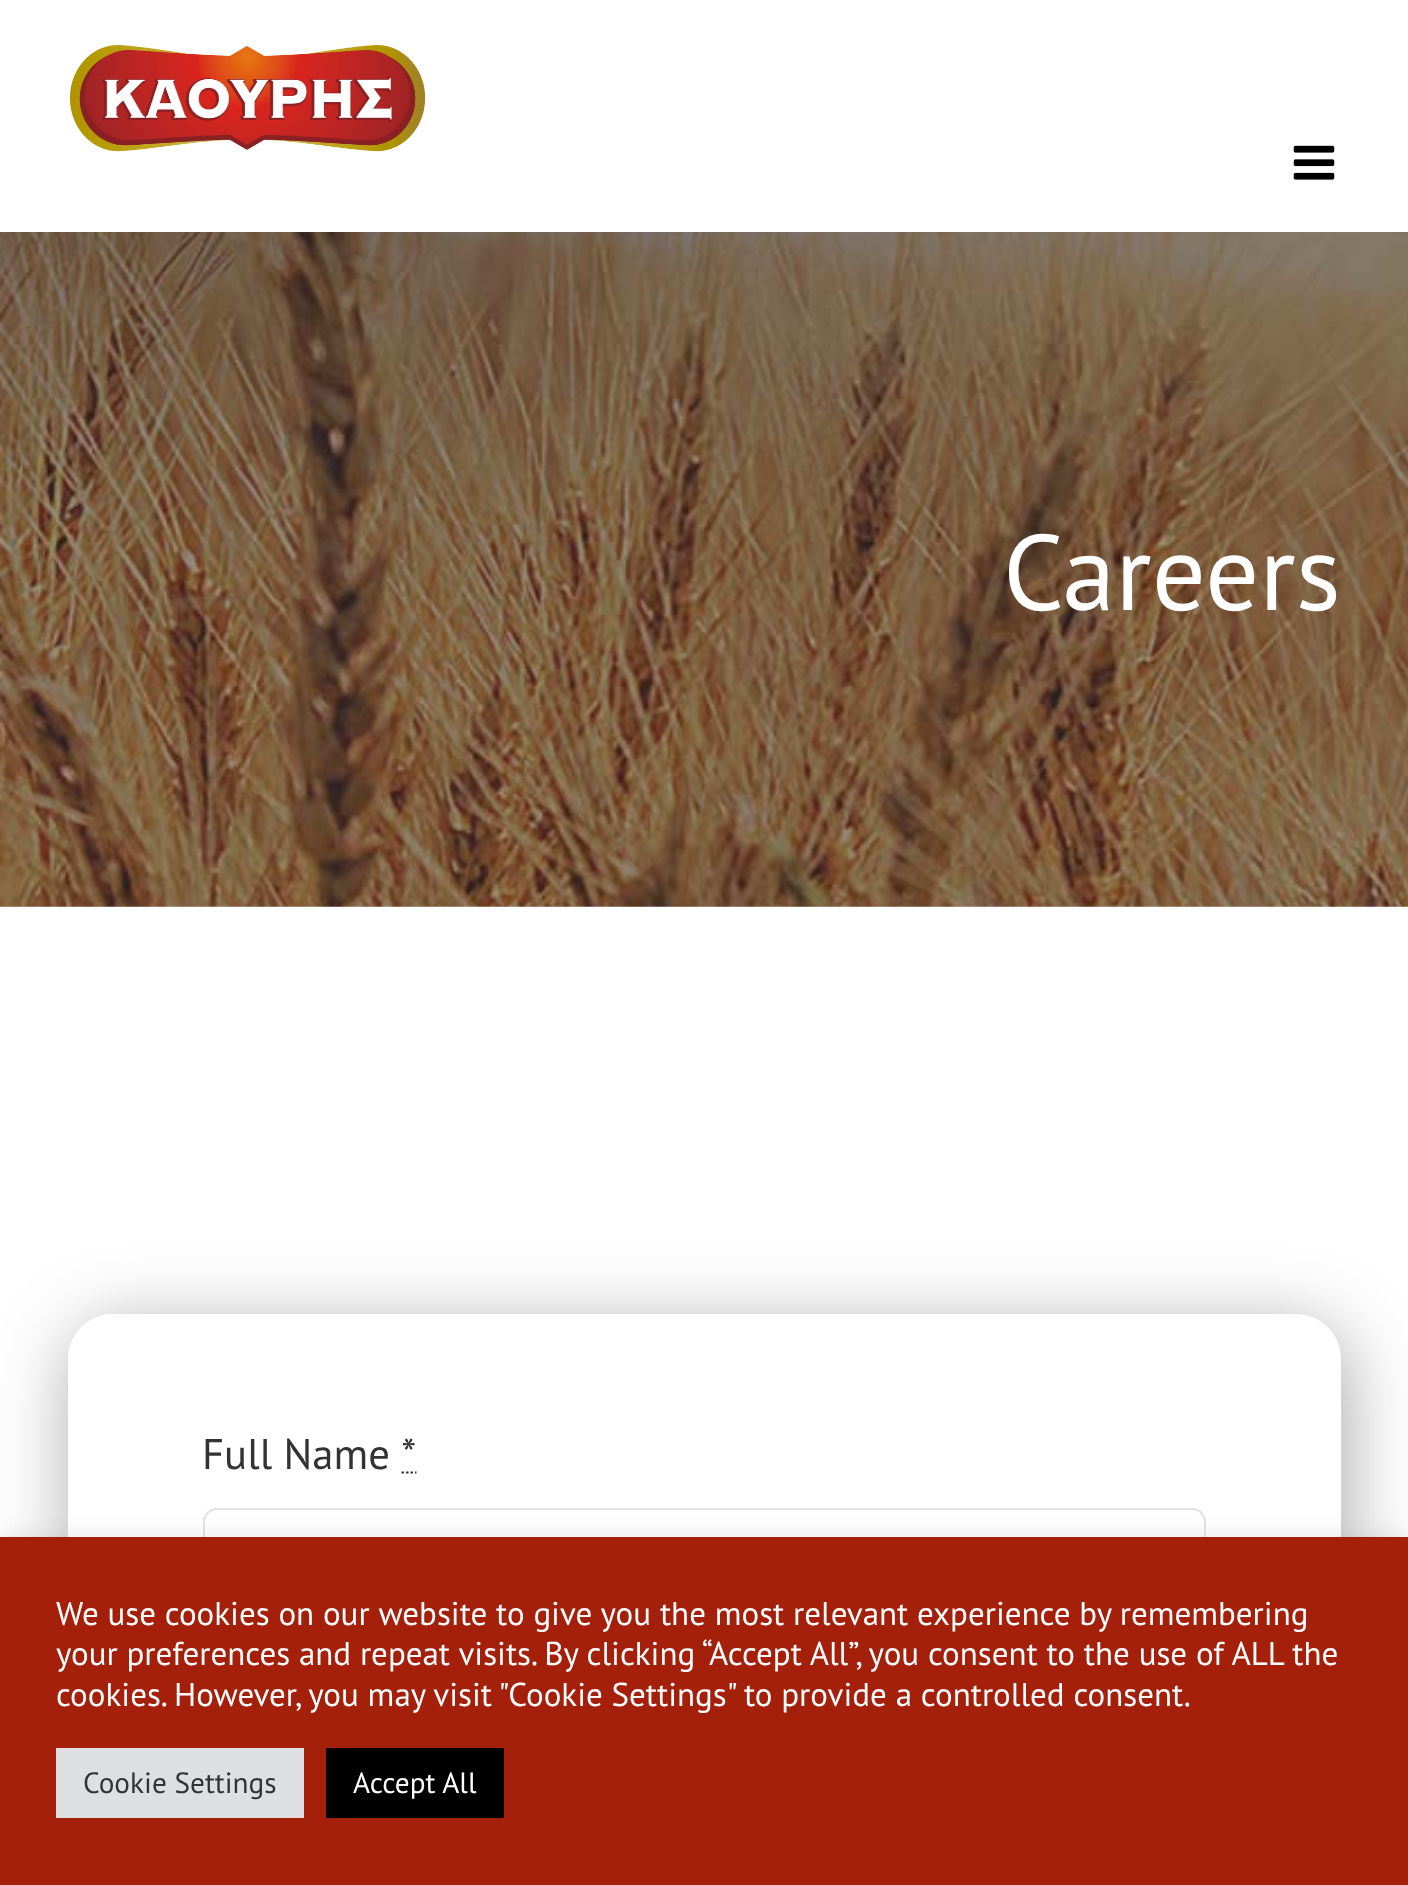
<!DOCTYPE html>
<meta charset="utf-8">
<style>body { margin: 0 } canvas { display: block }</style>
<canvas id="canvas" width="1408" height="1885"></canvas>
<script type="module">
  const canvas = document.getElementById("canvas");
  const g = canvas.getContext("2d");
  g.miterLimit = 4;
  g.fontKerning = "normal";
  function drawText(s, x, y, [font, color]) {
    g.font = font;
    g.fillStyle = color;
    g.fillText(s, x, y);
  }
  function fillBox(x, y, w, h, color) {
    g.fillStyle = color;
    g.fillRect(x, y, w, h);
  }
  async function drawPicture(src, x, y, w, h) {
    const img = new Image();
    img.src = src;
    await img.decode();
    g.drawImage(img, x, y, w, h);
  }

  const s1 = ["107px PT Sans", "#FFFFFF"];
  const s2 = ["42.75px PT Sans", "#333333"];
  const s3 = ["33px PT Sans", "#FFFFFF"];
  const s4 = ["29.25px PT Sans", "#333333"];
  const s5 = ["29.25px PT Sans", "#FFFFFF"];

  fillBox(0, 0, 1408, 1885, "#FFFFFF");
  await drawPicture("pic1.png", 69, 45, 357, 107);
  await drawPicture("pic2.png", 1293, 145, 42, 35);
  await drawPicture("pic3.png", 0, 232, 1408, 675);
  drawText("Careers", 1003, 610, s1);
  g.save();
  g.beginPath();
  g.moveTo(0, 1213);
  g.lineTo(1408, 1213);
  g.lineTo(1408, 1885);
  g.lineTo(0, 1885);
  g.closePath();
  g.moveTo(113, 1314);
  g.lineTo(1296, 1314);
  g.bezierCurveTo(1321, 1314, 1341, 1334, 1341, 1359);
  g.lineTo(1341, 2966);
  g.bezierCurveTo(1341, 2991, 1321, 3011, 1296, 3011);
  g.lineTo(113, 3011);
  g.bezierCurveTo(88, 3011, 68, 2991, 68, 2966);
  g.lineTo(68, 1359);
  g.bezierCurveTo(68, 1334, 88, 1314, 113, 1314);
  g.closePath();
  g.clip("evenodd");
  g.fillStyle = "rgba(0, 0, 0, 0.34)";
  g.filter = "blur(38px)";
  g.beginPath();
  g.roundRect(72, 1328, 1274, 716, 45);
  g.fill();
  g.filter = "none";
  g.restore();
  drawText("Full Name *", 202, 1469, s2);
  g.beginPath();
  g.moveTo(401.5, 1472.5);
  g.lineTo(404, 1472.5);
  g.moveTo(406, 1472.5);
  g.lineTo(408.5, 1472.5);
  g.moveTo(410.5, 1472.5);
  g.lineTo(413, 1472.5);
  g.moveTo(415, 1472.5);
  g.lineTo(416.5, 1472.5);
  g.strokeStyle = "#333333";
  g.lineWidth = 2.2;
  g.stroke();
  g.beginPath();
  g.roundRect(204, 1509, 1001, 121, 13);
  g.strokeStyle = "#E2E2E2";
  g.lineWidth = 2;
  g.stroke();
  g.fillStyle = "rgba(172, 171, 171, 0.3)";
  g.filter = "blur(11px)";
  g.beginPath();
  g.rect(0, 1535, 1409, 348);
  g.fill();
  g.filter = "none";
  fillBox(0, 1537, 1408, 348, "#A5200B");
  drawText("We use cookies on our website to give you the most relevant experience by remembering", 56, 1625, s3);
  drawText("your preferences and repeat visits. By clicking “Accept All”, you consent to the use of ALL the", 56, 1665, s3);
  drawText("cookies. However, you may visit \"Cookie Settings\" to provide a controlled consent.", 56, 1706, s3);
  fillBox(56, 1748, 248, 70, "#DEDFE0");
  drawText("Cookie Settings", 83, 1793, s4);
  fillBox(326, 1748, 178, 70, "#000000");
  drawText("Accept All", 353, 1793, s5);
</script>
